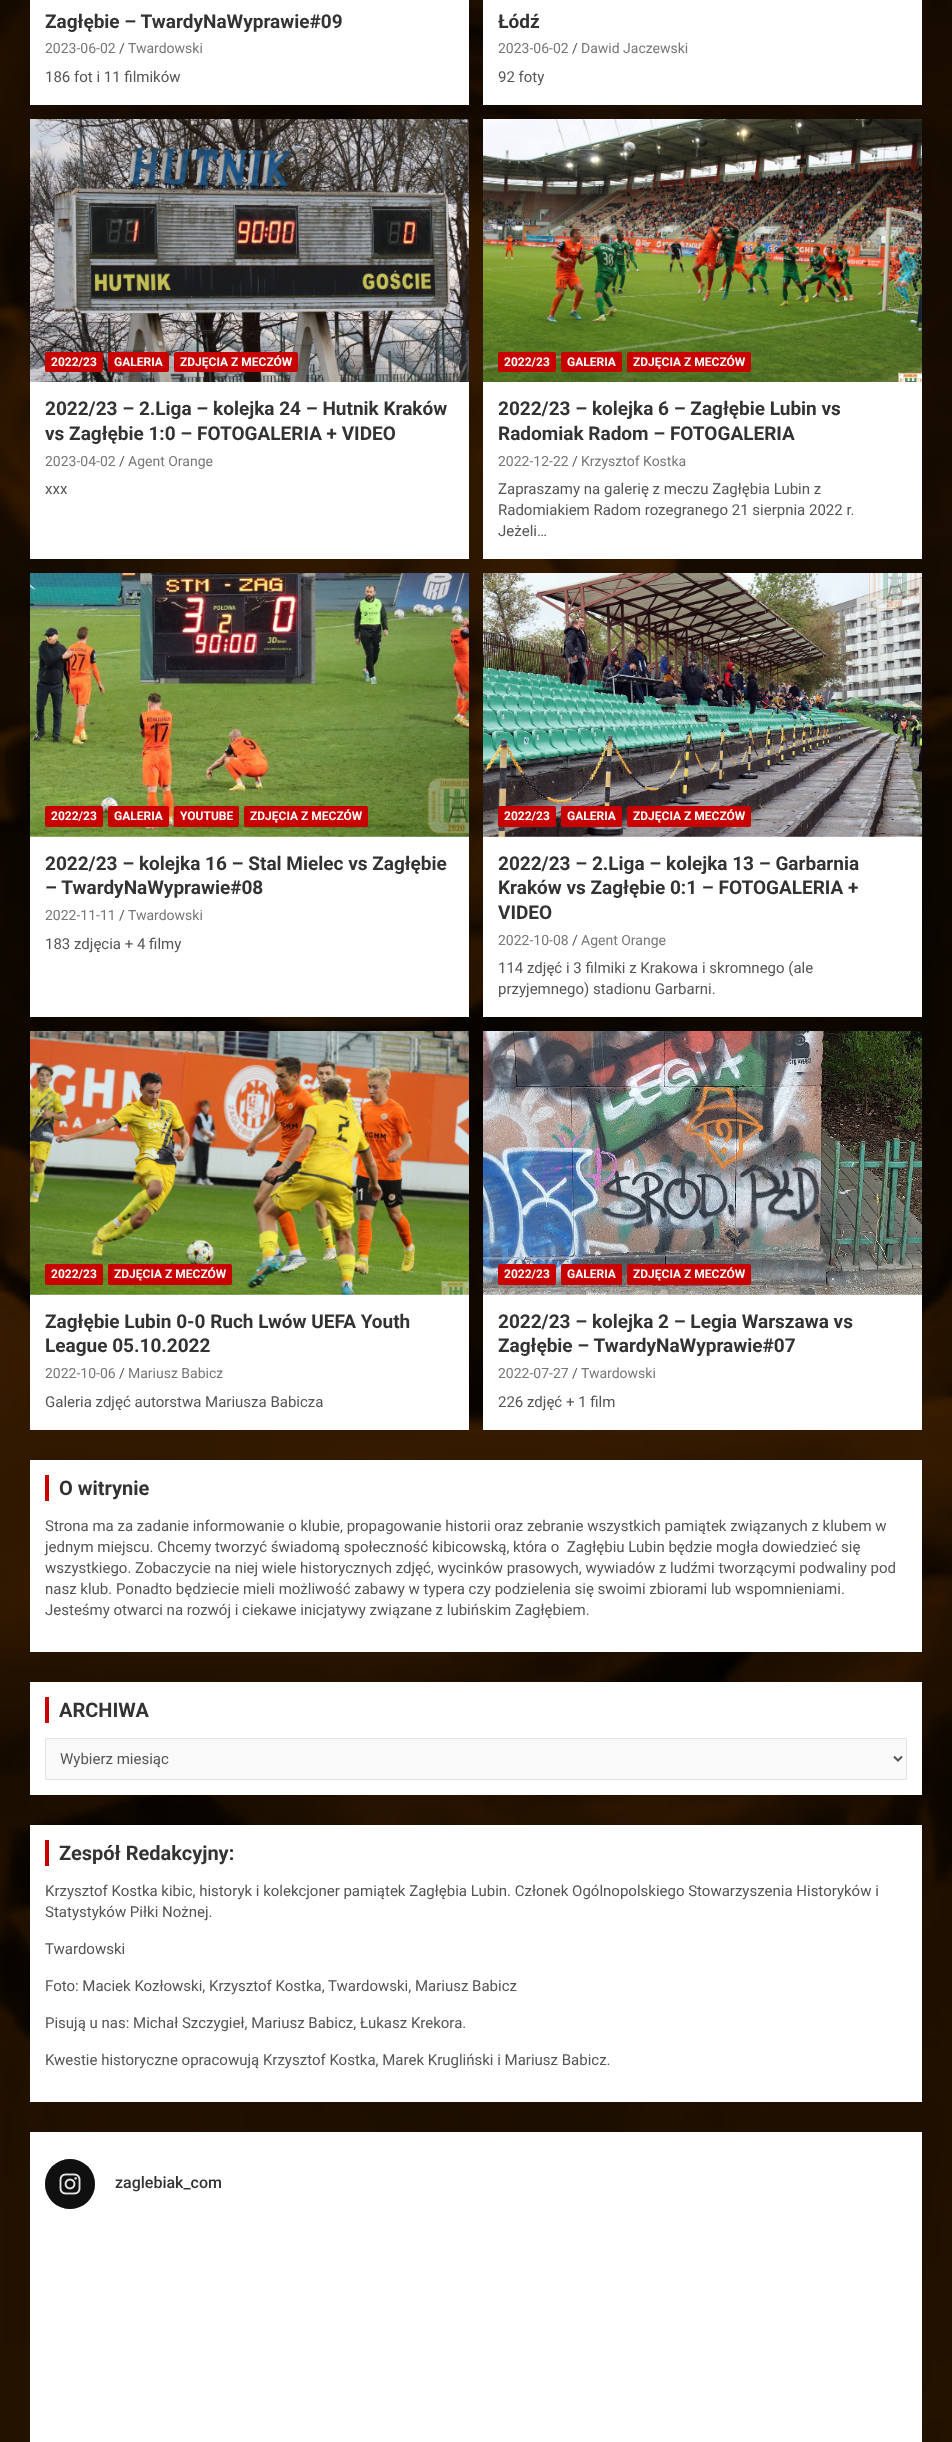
<!DOCTYPE html>
<meta charset="utf-8">
<style>body { margin: 0 } canvas { display: block }</style>
<canvas id="canvas" width="952" height="2442"></canvas>
<script type="module">
  const canvas = document.getElementById("canvas");
  const g = canvas.getContext("2d");
  g.miterLimit = 4;
  g.fontKerning = "normal";
  function drawText(s, x, y, [font, color]) {
    g.font = font;
    g.fillStyle = color;
    g.fillText(s, x, y);
  }
  function fillBox(x, y, w, h, color) {
    g.fillStyle = color;
    g.fillRect(x, y, w, h);
  }
  function fillRounded(x, y, w, h, r, color) {
    g.fillStyle = color;
    g.beginPath();
    g.roundRect(x, y, w, h, r);
    g.fill();
  }
  async function drawPicture(src, x, y, w, h) {
    const img = new Image();
    img.src = src;
    await img.decode();
    g.drawImage(img, x, y, w, h);
  }

  const s1 = ["bold 19px Roboto", "#333333"];
  const s2 = ["14px Roboto", "#777777"];
  const s3 = ["14px Roboto", "#555555"];
  const s4 = ["15px Roboto", "#555555"];
  const s5 = ["bold 12px Roboto", "#FFFFFF"];
  const s6 = ["bold 20px Roboto", "#333333"];
  const s7 = ["500 16px Roboto", "#333333"];

  fillBox(0, 0, 952, 2442, "#FFFFFF");
  await drawPicture("pic1.png", 0, 0, 952, 2442);
  fillBox(30, 0, 439, 105, "#FFFFFF");
  drawText("Zagłębie – TwardyNaWyprawie#09", 45, 28, s1);
  drawText("2023-06-02", 45, 53, s2);
  drawText("/", 119, 53, s3);
  drawText("Twardowski", 128, 53, s2);
  drawText("186 fot i 11 filmików", 45, 82, s4);
  fillBox(483, 0, 439, 105, "#FFFFFF");
  drawText("Łódź", 498, 28, s1);
  drawText("2023-06-02", 498, 53, s2);
  drawText("/", 572, 53, s3);
  drawText("Dawid Jaczewski", 581, 53, s2);
  drawText("92 foty", 498, 82, s4);
  fillBox(30, 382, 439, 177, "#FFFFFF");
  await drawPicture("pic2.png", 30, 119, 439, 263);
  fillRounded(45, 352, 58, 20, 2, "#C80000");
  drawText("2022/23", 51, 366, s5);
  fillRounded(108, 352, 61, 20, 2, "#C80000");
  drawText("GALERIA", 114, 366, s5);
  fillRounded(174, 352, 124, 20, 2, "#C80000");
  drawText("ZDJĘCIA Z MECZÓW", 180, 366, s5);
  drawText("2022/23 – 2.Liga – kolejka 24 – Hutnik Kraków", 45, 415, s1);
  drawText("vs Zagłębie 1:0 – FOTOGALERIA + VIDEO", 45, 440, s1);
  drawText("2023-04-02", 45, 466, s2);
  drawText("/", 119, 466, s3);
  drawText("Agent Orange", 128, 466, s2);
  drawText("xxx", 45, 494, s4);
  fillBox(483, 382, 439, 177, "#FFFFFF");
  await drawPicture("pic3.png", 483, 119, 439, 263);
  fillRounded(498, 352, 58, 20, 2, "#C80000");
  drawText("2022/23", 504, 366, s5);
  fillRounded(561, 352, 61, 20, 2, "#C80000");
  drawText("GALERIA", 567, 366, s5);
  fillRounded(627, 352, 124, 20, 2, "#C80000");
  drawText("ZDJĘCIA Z MECZÓW", 633, 366, s5);
  drawText("2022/23 – kolejka 6 – Zagłębie Lubin vs", 498, 415, s1);
  drawText("Radomiak Radom – FOTOGALERIA", 498, 440, s1);
  drawText("2022-12-22", 498, 466, s2);
  drawText("/", 572, 466, s3);
  drawText("Krzysztof Kostka", 581, 466, s2);
  drawText("Zapraszamy na galerię z meczu Zagłębia Lubin z", 498, 494, s4);
  drawText("Radomiakiem Radom rozegranego 21 sierpnia 2022 r.", 498, 515, s4);
  drawText("Jeżeli…", 498, 536, s4);
  fillBox(30, 836, 439, 181, "#FFFFFF");
  await drawPicture("pic4.png", 30, 573, 439, 264);
  fillRounded(45, 806, 58, 21, 2, "#C80000");
  drawText("2022/23", 51, 820, s5);
  fillRounded(108, 806, 61, 21, 2, "#C80000");
  drawText("GALERIA", 114, 820, s5);
  fillRounded(174, 806, 65, 21, 2, "#C80000");
  drawText("YOUTUBE", 180, 820, s5);
  fillRounded(244, 806, 124, 21, 2, "#C80000");
  drawText("ZDJĘCIA Z MECZÓW", 250, 820, s5);
  drawText("2022/23 – kolejka 16 – Stal Mielec vs Zagłębie", 45, 870, s1);
  drawText("– TwardyNaWyprawie#08", 45, 894, s1);
  drawText("2022-11-11", 45, 920, s2);
  drawText("/", 119, 920, s3);
  drawText("Twardowski", 128, 920, s2);
  drawText("183 zdjęcia + 4 filmy", 45, 949, s4);
  fillBox(483, 836, 439, 181, "#FFFFFF");
  await drawPicture("pic5.png", 483, 573, 439, 264);
  fillRounded(498, 806, 58, 21, 2, "#C80000");
  drawText("2022/23", 504, 820, s5);
  fillRounded(561, 806, 61, 21, 2, "#C80000");
  drawText("GALERIA", 567, 820, s5);
  fillRounded(627, 806, 124, 21, 2, "#C80000");
  drawText("ZDJĘCIA Z MECZÓW", 633, 820, s5);
  drawText("2022/23 – 2.Liga – kolejka 13 – Garbarnia", 498, 870, s1);
  drawText("Kraków vs Zagłębie 0:1 – FOTOGALERIA +", 498, 894, s1);
  drawText("VIDEO", 498, 919, s1);
  drawText("2022-10-08", 498, 945, s2);
  drawText("/", 572, 945, s3);
  drawText("Agent Orange", 581, 945, s2);
  drawText("114 zdjęć i 3 filmiki z Krakowa i skromnego (ale", 498, 973, s4);
  drawText("przyjemnego) stadionu Garbarni.", 498, 994, s4);
  fillBox(30, 1294, 439, 136, "#FFFFFF");
  await drawPicture("pic6.png", 30, 1031, 439, 264);
  fillRounded(45, 1264, 58, 21, 2, "#C80000");
  drawText("2022/23", 51, 1278, s5);
  fillRounded(108, 1264, 124, 21, 2, "#C80000");
  drawText("ZDJĘCIA Z MECZÓW", 114, 1278, s5);
  drawText("Zagłębie Lubin 0-0 Ruch Lwów UEFA Youth", 45, 1328, s1);
  drawText("League 05.10.2022", 45, 1352, s1);
  drawText("2022-10-06", 45, 1378, s2);
  drawText("/", 119, 1378, s3);
  drawText("Mariusz Babicz", 128, 1378, s2);
  drawText("Galeria zdjęć autorstwa Mariusza Babicza", 45, 1407, s4);
  fillBox(483, 1294, 439, 136, "#FFFFFF");
  await drawPicture("pic7.png", 483, 1031, 439, 264);
  fillRounded(498, 1264, 58, 21, 2, "#C80000");
  drawText("2022/23", 504, 1278, s5);
  fillRounded(561, 1264, 61, 21, 2, "#C80000");
  drawText("GALERIA", 567, 1278, s5);
  fillRounded(627, 1264, 124, 21, 2, "#C80000");
  drawText("ZDJĘCIA Z MECZÓW", 633, 1278, s5);
  drawText("2022/23 – kolejka 2 – Legia Warszawa vs", 498, 1328, s1);
  drawText("Zagłębie – TwardyNaWyprawie#07", 498, 1352, s1);
  drawText("2022-07-27", 498, 1378, s2);
  drawText("/", 572, 1378, s3);
  drawText("Twardowski", 581, 1378, s2);
  drawText("226 zdjęć + 1 film", 498, 1407, s4);
  fillBox(30, 1460, 892, 192, "#FFFFFF");
  fillBox(45, 1475, 4, 26, "#C80000");
  drawText("O witrynie", 59, 1495, s6);
  drawText("Strona ma za zadanie informowanie o klubie, propagowanie historii oraz zebranie wszystkich pamiątek związanych z klubem w", 45, 1531, s4);
  drawText("jednym miejscu. Chcemy tworzyć świadomą społeczność kibicowską, która o  Zagłębiu Lubin będzie mogła dowiedzieć się", 45, 1552, s4);
  drawText("wszystkiego. Zobaczycie na niej wiele historycznych zdjęć, wycinków prasowych, wywiadów z ludźmi tworzącymi podwaliny pod", 45, 1573, s4);
  drawText("nasz klub. Ponadto będziecie mieli możliwość zabawy w typera czy podzielenia się swoimi zbiorami lub wspomnieniami.", 45, 1594, s4);
  drawText("Jesteśmy otwarci na rozwój i ciekawe inicjatywy związane z lubińskim Zagłębiem.", 45, 1615, s4);
  fillBox(30, 1682, 892, 113, "#FFFFFF");
  fillBox(45, 1697, 4, 26, "#C80000");
  drawText("ARCHIWA", 59, 1717, s6);
  g.fillStyle = "#F9F9F9";
  g.beginPath();
  g.rect(45.5, 1738.5, 861, 41);
  g.fill();
  g.strokeStyle = "#E3E3E3";
  g.stroke();
  g.beginPath();
  g.moveTo(894, 1756.5);
  g.lineTo(898, 1760.5);
  g.lineTo(902, 1756.5);
  g.strokeStyle = "#555555";
  g.lineWidth = 2;
  g.stroke();
  drawText("Wybierz miesiąc", 60, 1764, s4);
  fillBox(30, 1825, 892, 277, "#FFFFFF");
  fillBox(45, 1840, 4, 26, "#C80000");
  drawText("Zespół Redakcyjny:", 59, 1860, s6);
  drawText("Krzysztof Kostka kibic, historyk i kolekcjoner pamiątek Zagłębia Lubin. Członek Ogólnopolskiego Stowarzyszenia Historyków i", 45, 1896, s4);
  drawText("Statystyków Piłki Nożnej.", 45, 1917, s4);
  drawText("Twardowski", 45, 1954, s4);
  drawText("Foto: Maciek Kozłowski, Krzysztof Kostka, Twardowski, Mariusz Babicz", 45, 1991, s4);
  drawText("Pisują u nas: Michał Szczygieł, Mariusz Babicz, Łukasz Krekora.", 45, 2028, s4);
  drawText("Kwestie historyczne opracowują Krzysztof Kostka, Marek Krugliński i Mariusz Babicz.", 45, 2065, s4);
  fillBox(30, 2132, 892, 310, "#FFFFFF");
  g.fillStyle = "#333333";
  g.beginPath();
  g.arc(70, 2184, 25, 0, Math.PI * 2);
  g.fill();
  g.fillStyle = "rgba(0, 0, 0, 0.68)";
  g.beginPath();
  g.arc(70, 2184, 25, 0, Math.PI * 2);
  g.fill();
  await drawPicture("pic8.png", 59, 2173, 22, 22);
  drawText("zaglebiak_com", 115, 2188, s7);
</script>
